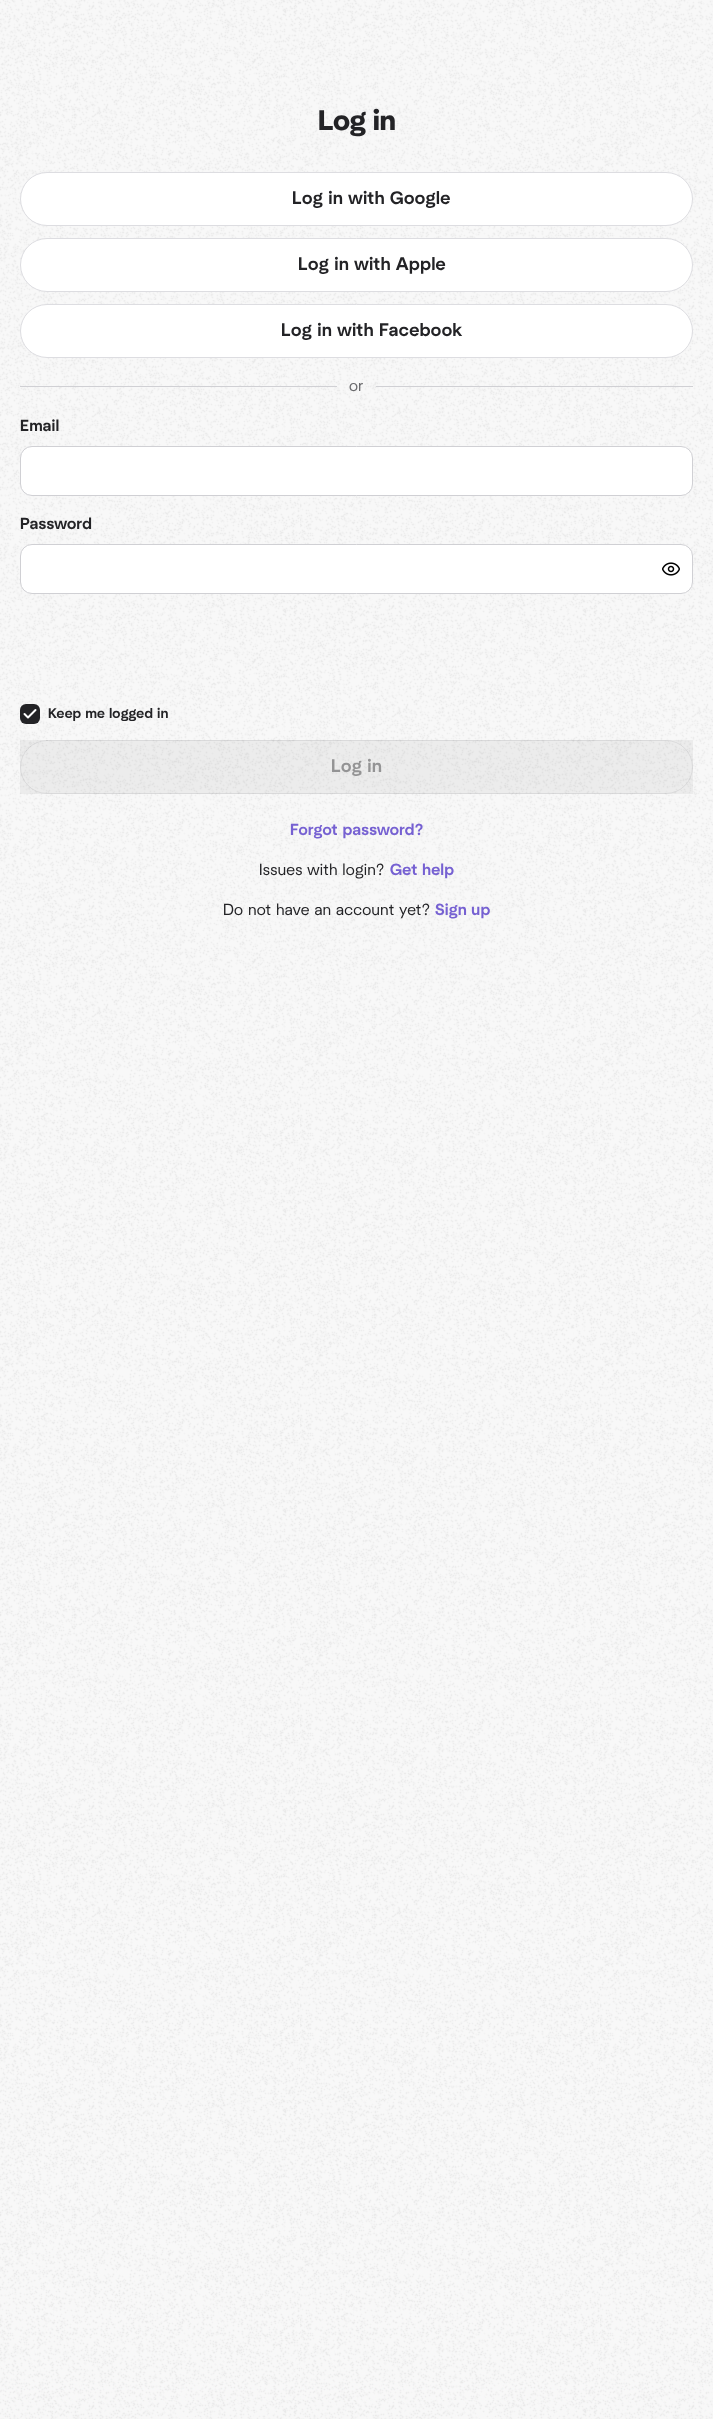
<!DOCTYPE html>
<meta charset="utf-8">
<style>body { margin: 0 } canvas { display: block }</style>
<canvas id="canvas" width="713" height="2419"></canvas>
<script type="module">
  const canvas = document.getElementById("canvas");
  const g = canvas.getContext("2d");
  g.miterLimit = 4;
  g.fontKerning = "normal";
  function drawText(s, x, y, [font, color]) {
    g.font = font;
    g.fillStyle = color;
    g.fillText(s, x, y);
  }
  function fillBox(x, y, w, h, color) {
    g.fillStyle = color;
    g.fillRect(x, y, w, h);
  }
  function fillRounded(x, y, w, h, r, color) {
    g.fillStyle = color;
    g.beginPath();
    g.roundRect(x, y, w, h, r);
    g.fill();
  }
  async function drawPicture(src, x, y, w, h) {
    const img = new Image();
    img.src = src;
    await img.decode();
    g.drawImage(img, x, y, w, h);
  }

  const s1 = ["bold 28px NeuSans", "#232326"];
  const s2 = ["500 18px NeuSans", "#232326"];
  const s3 = ["16px NeuSans", "#69696C"];
  const s4 = ["500 16px NeuSans", "#232326"];
  const s5 = ["500 14px NeuSans", "#232326"];
  const s6 = ["500 18px NeuSans", "#949495"];
  const s7 = ["500 16px NeuSans", "#7661D2"];
  const s8 = ["16px NeuSans", "#232326"];

  fillBox(0, 0, 713, 2419, "#FFFFFF");
  await drawPicture("pic1.png", 0, 0, 713, 2419);
  drawText("Log in", 318, 130, s1);
  g.fillStyle = "#FFFFFF";
  g.beginPath();
  g.roundRect(20.5, 172.5, 672, 53, 26.5);
  g.fill();
  g.strokeStyle = "#DDDDE1";
  g.stroke();
  g.letterSpacing = "0.4px";
  drawText("Log in with Google", 292, 204, s2);
  g.fillStyle = "#FFFFFF";
  g.beginPath();
  g.roundRect(20.5, 238.5, 672, 53, 26.5);
  g.fill();
  g.stroke();
  drawText("Log in with Apple", 298, 270, s2);
  g.fillStyle = "#FFFFFF";
  g.beginPath();
  g.roundRect(20.5, 304.5, 672, 53, 26.5);
  g.fill();
  g.stroke();
  drawText("Log in with Facebook", 281, 336, s2);
  fillBox(20, 386, 317, 1, "#D0D0D4");
  g.letterSpacing = "0.3px";
  drawText("or", 349, 391, s3);
  fillBox(376, 386, 317, 1, "#D0D0D4");
  drawText("Email", 20, 431, s4);
  g.fillStyle = "#FFFFFF";
  g.beginPath();
  g.roundRect(20.5, 446.5, 672, 49, 11.5);
  g.fill();
  g.strokeStyle = "#D0D0D4";
  g.stroke();
  drawText("Password", 20, 529, s4);
  g.fillStyle = "#FFFFFF";
  g.beginPath();
  g.roundRect(20.5, 544.5, 672, 49, 11.5);
  g.fill();
  g.stroke();
  await drawPicture("pic2.png", 662, 562, 18, 14);
  fillRounded(20, 704, 20, 20, 6, "#232326");
  g.beginPath();
  g.moveTo(35.5, 710);
  g.lineTo(28, 717.5);
  g.lineTo(24.5, 714);
  g.strokeStyle = "#FFFFFF";
  g.lineWidth = 2;
  g.lineCap = "round";
  g.lineJoin = "round";
  g.stroke();
  g.letterSpacing = "0.25px";
  drawText("Keep me logged in", 48, 718, s5);
  fillBox(20, 740, 673, 54, "rgba(18, 18, 21, 0.05)");
  g.beginPath();
  g.roundRect(20.5, 740.5, 672, 53, 26.5);
  g.strokeStyle = "rgba(18, 18, 21, 0.08)";
  g.lineWidth = 1;
  g.lineJoin = "miter";
  g.stroke();
  g.letterSpacing = "0.4px";
  drawText("Log in", 331, 772, s6);
  g.letterSpacing = "0.3px";
  drawText("Forgot password?", 290, 835, s7);
  drawText("Issues with login?", 259, 875, s8);
  drawText("Get help", 390, 875, s7);
  drawText("Do not have an account yet?", 223, 915, s8);
  drawText("Sign up", 435, 915, s7);
</script>
